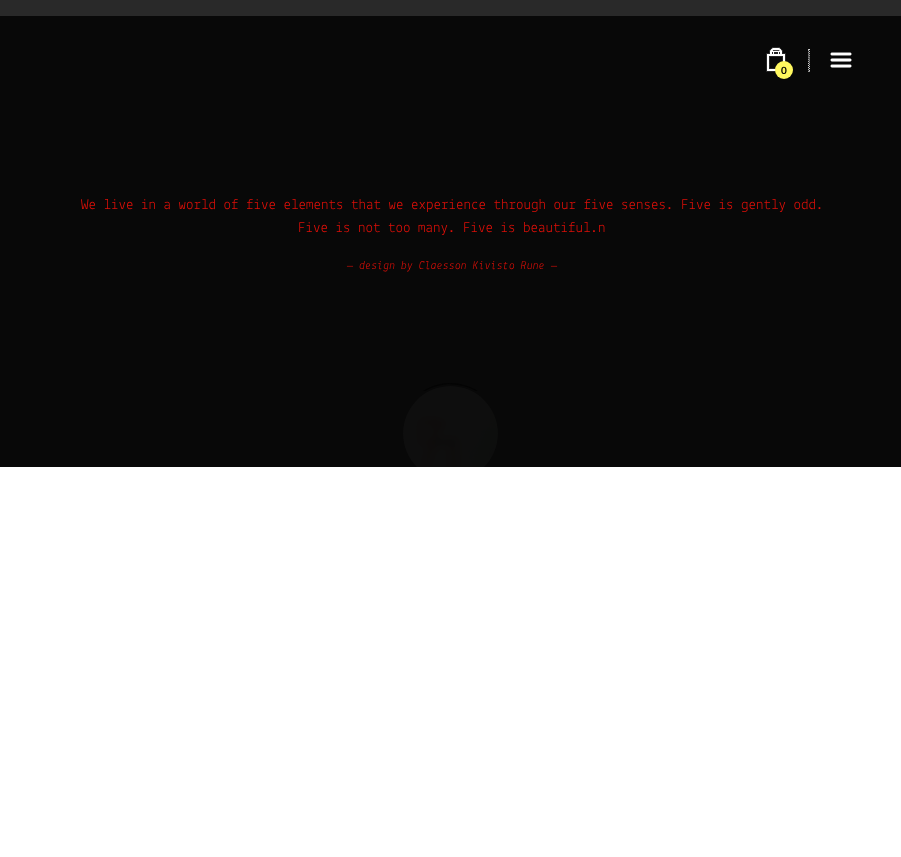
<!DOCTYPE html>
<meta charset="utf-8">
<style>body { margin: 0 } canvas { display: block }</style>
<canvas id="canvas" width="901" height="857"></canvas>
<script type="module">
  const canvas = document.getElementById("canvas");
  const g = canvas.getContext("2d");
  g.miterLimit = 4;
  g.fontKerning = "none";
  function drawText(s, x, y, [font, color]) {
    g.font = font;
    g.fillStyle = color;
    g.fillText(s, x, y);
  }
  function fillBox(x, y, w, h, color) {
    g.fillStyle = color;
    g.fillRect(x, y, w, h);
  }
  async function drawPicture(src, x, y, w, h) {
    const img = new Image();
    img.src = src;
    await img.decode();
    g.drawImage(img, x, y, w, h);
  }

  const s1 = ["bold 10px Lato", "#000000"];
  const s2 = ["15px Lekton", "#DD0F08"];
  const s3 = ["italic 12px Liberation Serif", "#DD0F08"];
  const s4 = ["italic 12px Lekton", "#DD0F08"];

  fillBox(0, 0, 901, 857, "#FFFFFF");
  fillBox(0, 0, 901, 16, "#292929");
  fillBox(0, 16, 901, 451, "#080808");
  await drawPicture("pic1.png", 830, 52, 22, 16);
  await drawPicture("pic2.png", 766, 47, 20, 25);
  g.fillStyle = "#FFF85F";
  g.beginPath();
  g.arc(784, 70, 9, 0, Math.PI * 2);
  g.fill();
  drawText("0", 781, 74, s1);
  await drawPicture("pic3.png", 808, 49, 2, 23);
  drawText("We live in a world of five elements that we experience through our five senses. Five is gently odd.", 81, 209, s2);
  drawText("Five is not too many. Five is beautiful.n", 298, 232, s2);
  drawText("–", 347, 269, s3);
  drawText("design by Claesson Kivisto Rune", 359, 269, s4);
  drawText("–", 551, 269, s3);
  await drawPicture("pic4.png", 403, 386, 95, 81);
  g.fillStyle = "#040404";
  g.beginPath();
  g.moveTo(450, 383);
  g.bezierCurveTo(440, 383, 431, 386, 423, 391);
  g.lineTo(425, 391);
  g.bezierCurveTo(440, 382, 460, 382, 476, 391);
  g.lineTo(478, 391);
  g.bezierCurveTo(470, 386, 460, 383, 450, 383);
  g.closePath();
  g.fill();
</script>
